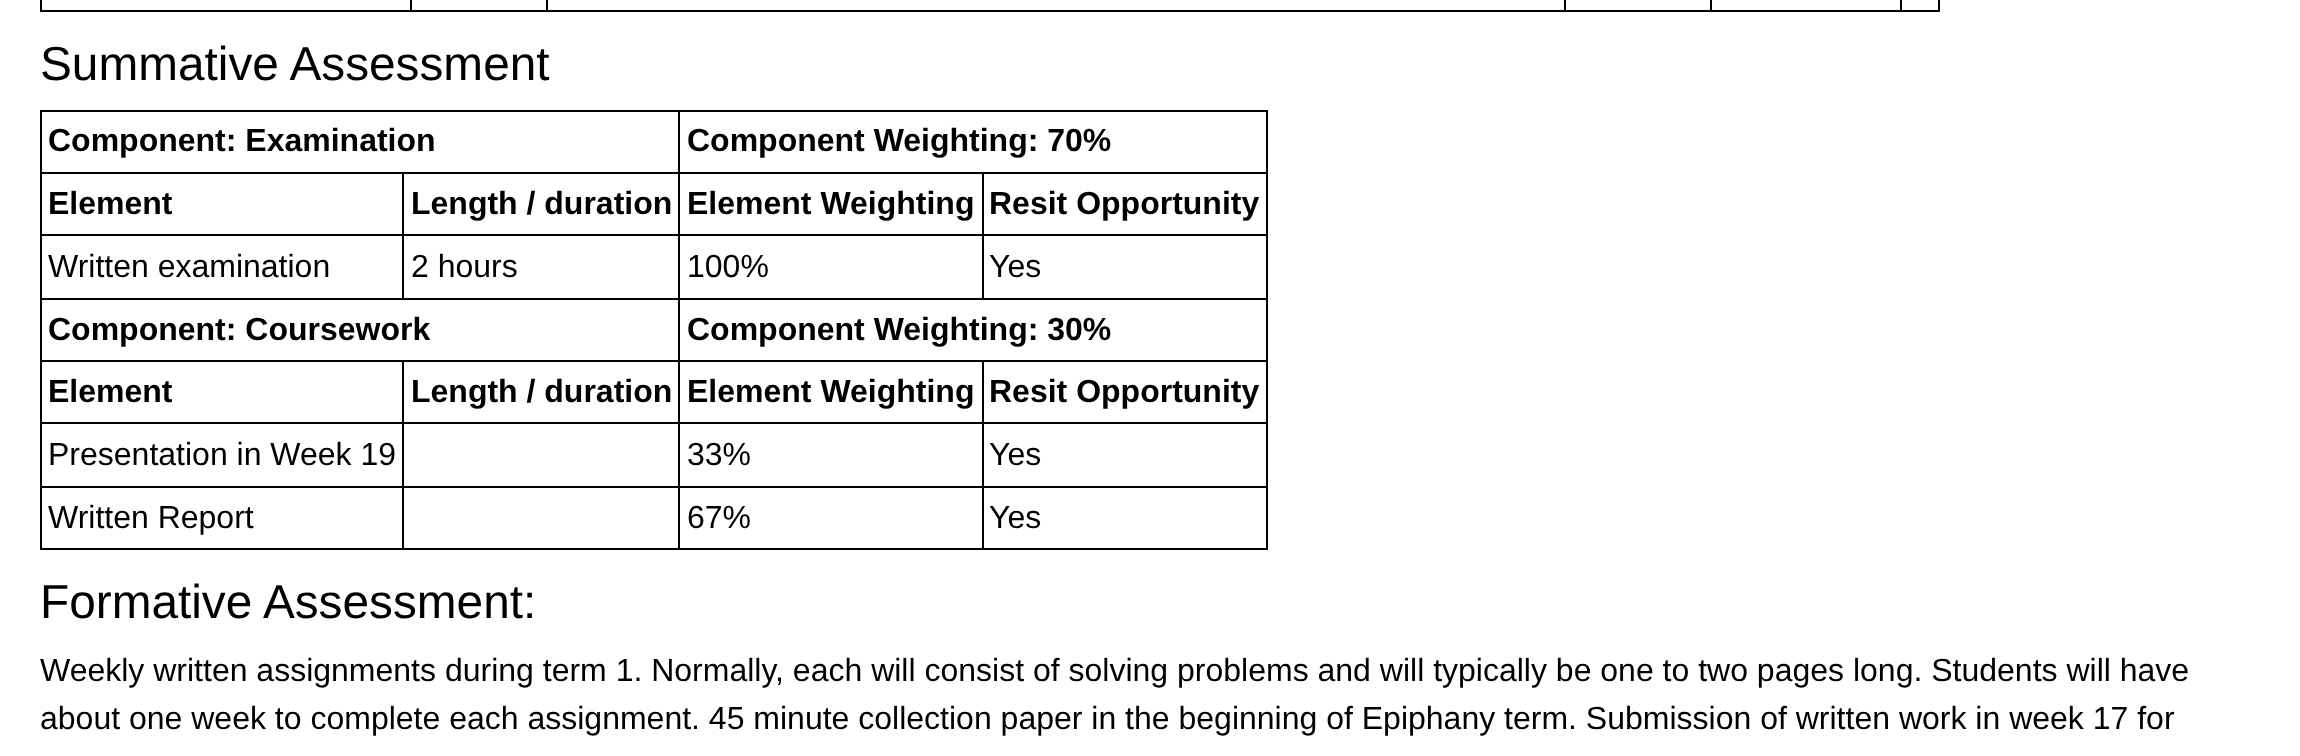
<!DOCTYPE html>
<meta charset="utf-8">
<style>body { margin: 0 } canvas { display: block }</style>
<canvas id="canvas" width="2300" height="756"></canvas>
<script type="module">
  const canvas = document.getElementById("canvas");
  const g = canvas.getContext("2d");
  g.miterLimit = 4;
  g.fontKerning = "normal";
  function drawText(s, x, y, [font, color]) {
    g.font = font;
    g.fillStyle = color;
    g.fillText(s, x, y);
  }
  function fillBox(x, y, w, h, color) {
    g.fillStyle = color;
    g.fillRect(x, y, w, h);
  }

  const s1 = ["47.75px Liberation Sans", "#000000"];
  const s2 = ["bold 32px Liberation Sans", "#000000"];
  const s3 = ["32px Liberation Sans", "#000000"];

  fillBox(0, 0, 2300, 756, "#FFFFFF");
  fillBox(1938, 0, 2, 12, "#000000");
  fillBox(1900, 10, 40, 2, "#000000");
  fillBox(1900, 0, 2, 12, "#000000");
  fillBox(1710, 10, 192, 2, "#000000");
  fillBox(1710, 0, 2, 12, "#000000");
  fillBox(1564, 10, 148, 2, "#000000");
  fillBox(1564, 0, 2, 12, "#000000");
  fillBox(546, 10, 1020, 2, "#000000");
  fillBox(546, 0, 2, 12, "#000000");
  fillBox(410, 10, 138, 2, "#000000");
  fillBox(410, 0, 2, 12, "#000000");
  fillBox(40, 10, 372, 2, "#000000");
  fillBox(40, 0, 2, 12, "#000000");
  drawText("Summative Assessment", 40, 80, s1);
  fillBox(678, 110, 590, 2, "#000000");
  fillBox(982, 172, 286, 2, "#000000");
  fillBox(982, 234, 286, 2, "#000000");
  fillBox(678, 298, 590, 2, "#000000");
  fillBox(982, 234, 2, 66, "#000000");
  fillBox(678, 234, 306, 2, "#000000");
  fillBox(982, 172, 2, 64, "#000000");
  fillBox(678, 172, 306, 2, "#000000");
  fillBox(982, 360, 286, 2, "#000000");
  fillBox(982, 422, 286, 2, "#000000");
  fillBox(982, 486, 286, 2, "#000000");
  fillBox(1266, 486, 2, 64, "#000000");
  fillBox(982, 548, 286, 2, "#000000");
  fillBox(982, 486, 2, 64, "#000000");
  fillBox(678, 486, 306, 2, "#000000");
  fillBox(982, 422, 2, 66, "#000000");
  fillBox(678, 422, 306, 2, "#000000");
  fillBox(982, 360, 2, 64, "#000000");
  fillBox(678, 360, 306, 2, "#000000");
  fillBox(678, 548, 306, 2, "#000000");
  fillBox(678, 486, 2, 64, "#000000");
  fillBox(402, 486, 278, 2, "#000000");
  fillBox(678, 422, 2, 66, "#000000");
  fillBox(402, 422, 278, 2, "#000000");
  fillBox(678, 360, 2, 64, "#000000");
  fillBox(402, 360, 278, 2, "#000000");
  fillBox(678, 298, 2, 64, "#000000");
  fillBox(40, 298, 640, 2, "#000000");
  fillBox(678, 234, 2, 66, "#000000");
  fillBox(402, 234, 278, 2, "#000000");
  fillBox(678, 172, 2, 64, "#000000");
  fillBox(402, 172, 278, 2, "#000000");
  fillBox(678, 110, 2, 64, "#000000");
  fillBox(40, 110, 640, 2, "#000000");
  fillBox(402, 234, 2, 66, "#000000");
  fillBox(40, 234, 364, 2, "#000000");
  fillBox(402, 172, 2, 64, "#000000");
  fillBox(40, 172, 364, 2, "#000000");
  fillBox(402, 548, 278, 2, "#000000");
  fillBox(402, 486, 2, 64, "#000000");
  fillBox(40, 486, 364, 2, "#000000");
  fillBox(402, 422, 2, 66, "#000000");
  fillBox(40, 422, 364, 2, "#000000");
  fillBox(402, 360, 2, 64, "#000000");
  fillBox(40, 360, 364, 2, "#000000");
  fillBox(40, 548, 364, 2, "#000000");
  fillBox(40, 486, 2, 64, "#000000");
  fillBox(40, 422, 2, 66, "#000000");
  fillBox(40, 360, 2, 64, "#000000");
  fillBox(40, 298, 2, 64, "#000000");
  fillBox(40, 234, 2, 66, "#000000");
  fillBox(40, 172, 2, 64, "#000000");
  fillBox(40, 110, 2, 64, "#000000");
  drawText("Component: Examination", 48, 151, s2);
  fillBox(1266, 422, 2, 66, "#000000");
  fillBox(1266, 360, 2, 64, "#000000");
  fillBox(1266, 298, 2, 64, "#000000");
  fillBox(1266, 234, 2, 66, "#000000");
  fillBox(1266, 172, 2, 64, "#000000");
  fillBox(1266, 110, 2, 64, "#000000");
  drawText("Component Weighting: 70%", 687, 151, s2);
  drawText("Element", 48, 214, s2);
  drawText("Length / duration", 411, 214, s2);
  drawText("Element Weighting", 687, 214, s2);
  drawText("Resit Opportunity", 989, 214, s2);
  drawText("Written examination", 48, 277, s3);
  drawText("2 hours", 411, 277, s3);
  drawText("100%", 687, 277, s3);
  drawText("Yes", 989, 277, s3);
  drawText("Component: Coursework", 48, 340, s2);
  drawText("Component Weighting: 30%", 687, 340, s2);
  drawText("Element", 48, 402, s2);
  drawText("Length / duration", 411, 402, s2);
  drawText("Element Weighting", 687, 402, s2);
  drawText("Resit Opportunity", 989, 402, s2);
  drawText("Presentation in Week 19", 48, 465, s3);
  drawText("33%", 687, 465, s3);
  drawText("Yes", 989, 465, s3);
  drawText("Written Report", 48, 528, s3);
  drawText("67%", 687, 528, s3);
  drawText("Yes", 989, 528, s3);
  drawText("Formative Assessment:", 40, 618, s1);
  drawText("Weekly written assignments during term 1. Normally, each will consist of solving problems and will typically be one to two pages long. Students will have", 40, 681, s3);
  drawText("about one week to complete each assignment. 45 minute collection paper in the beginning of Epiphany term. Submission of written work in week 17 for", 40, 729, s3);
</script>
